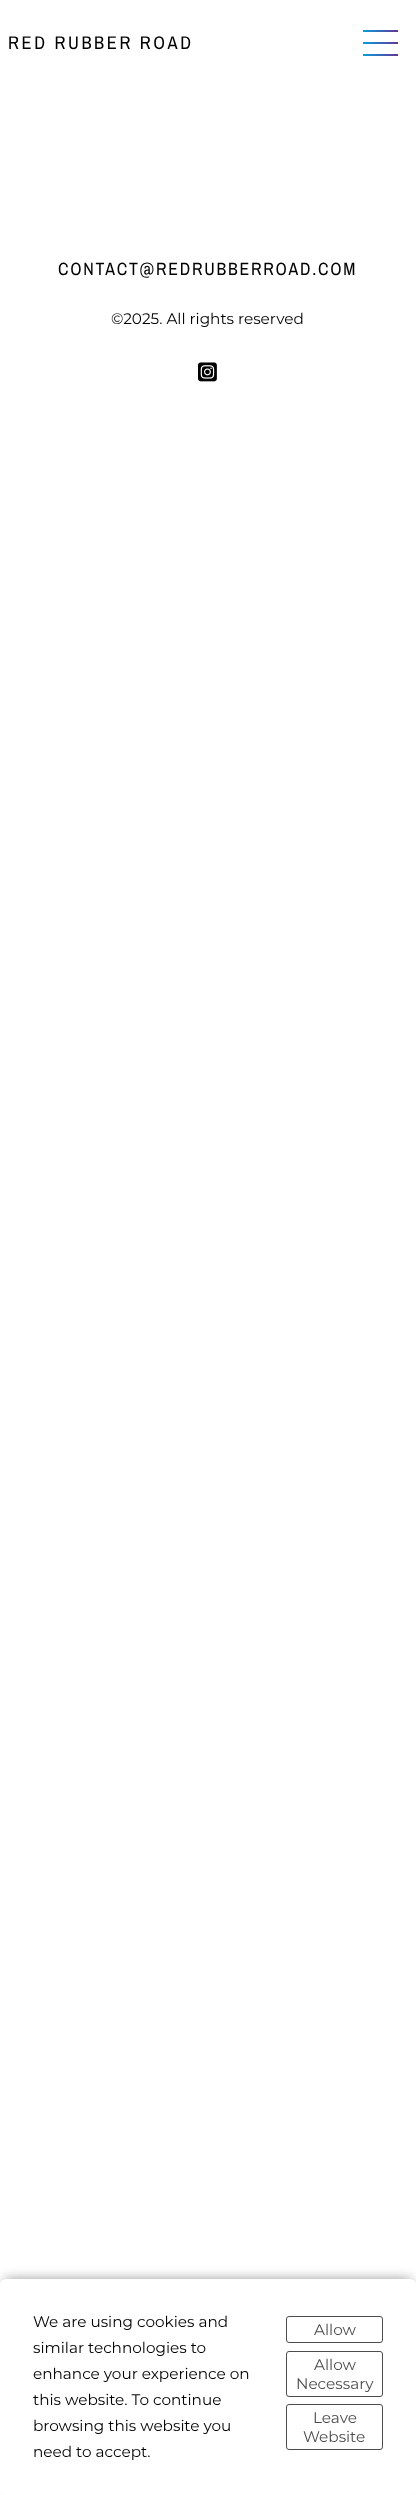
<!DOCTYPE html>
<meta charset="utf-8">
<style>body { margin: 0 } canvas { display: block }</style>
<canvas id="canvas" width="416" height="2495"></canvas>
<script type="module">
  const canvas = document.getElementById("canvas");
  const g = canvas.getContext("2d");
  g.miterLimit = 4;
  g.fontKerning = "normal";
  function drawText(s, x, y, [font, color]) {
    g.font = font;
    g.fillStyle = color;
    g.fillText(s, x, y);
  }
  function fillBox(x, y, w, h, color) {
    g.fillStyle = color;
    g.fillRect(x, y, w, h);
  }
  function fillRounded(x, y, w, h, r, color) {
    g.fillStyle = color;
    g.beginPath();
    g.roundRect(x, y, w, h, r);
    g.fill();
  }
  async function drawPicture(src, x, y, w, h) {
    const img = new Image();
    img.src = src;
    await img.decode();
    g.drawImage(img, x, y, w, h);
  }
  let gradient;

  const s1 = ["18.4px Archivo Narrow", "#000000"];
  const s2 = ["17.75px Archivo Narrow", "#000000"];
  const s3 = ["15.25px Montserrat", "#000000"];
  const s4 = ["15.25px Montserrat", "#4D4D4D"];

  fillBox(0, 0, 416, 2495, "#FFFFFF");
  g.letterSpacing = "2.6px";
  drawText("RED RUBBER ROAD", 8, 49, s1);
  gradient = g.createLinearGradient(363, 31, 398, 31);
  gradient.addColorStop(0, "#089FDA");
  gradient.addColorStop(1, "#663399");
  g.fillStyle = gradient;
  g.fillRect(363, 30, 35, 2);
  gradient = g.createLinearGradient(363, 43, 398, 43);
  gradient.addColorStop(0, "#089FDA");
  gradient.addColorStop(1, "#663399");
  g.fillStyle = gradient;
  g.fillRect(363, 42, 35, 2);
  gradient = g.createLinearGradient(363, 55, 398, 55);
  gradient.addColorStop(0, "#089FDA");
  gradient.addColorStop(1, "#663399");
  g.fillStyle = gradient;
  g.fillRect(363, 54, 35, 2);
  g.letterSpacing = "1.75px";
  drawText("CONTACT@REDRUBBERROAD.COM", 58, 275, s2);
  g.letterSpacing = "0px";
  drawText("©2025. All rights reserved", 111, 324, s3);
  await drawPicture("pic1.png", 198, 362, 19, 20);
  g.fillStyle = "rgba(0, 0, 0, 0.4)";
  g.filter = "blur(6px)";
  g.beginPath();
  g.roundRect(5, 2279, 406, 206, 1);
  g.fill();
  g.filter = "none";
  fillRounded(0, 2279, 416, 216, 6, "#FFFFFF");
  drawText("We are using cookies and", 33, 2327, s3);
  drawText("similar technologies to", 33, 2353, s3);
  drawText("enhance your experience on", 33, 2379, s3);
  drawText("this website. To continue", 33, 2405, s3);
  drawText("browsing this website you", 33, 2431, s3);
  drawText("need to accept.", 33, 2457, s3);
  g.beginPath();
  g.roundRect(286.5, 2316.5, 96, 26, 2.5);
  g.strokeStyle = "#4D4D4D";
  g.stroke();
  drawText("Allow", 314, 2335, s4);
  g.beginPath();
  g.roundRect(286.5, 2351.5, 96, 45, 2.5);
  g.stroke();
  drawText("Allow", 314, 2370, s4);
  drawText("Necessary", 296, 2389, s4);
  g.beginPath();
  g.roundRect(286.5, 2404.5, 96, 45, 2.5);
  g.stroke();
  drawText("Leave", 313, 2423, s4);
  drawText("Website", 303, 2442, s4);
</script>
